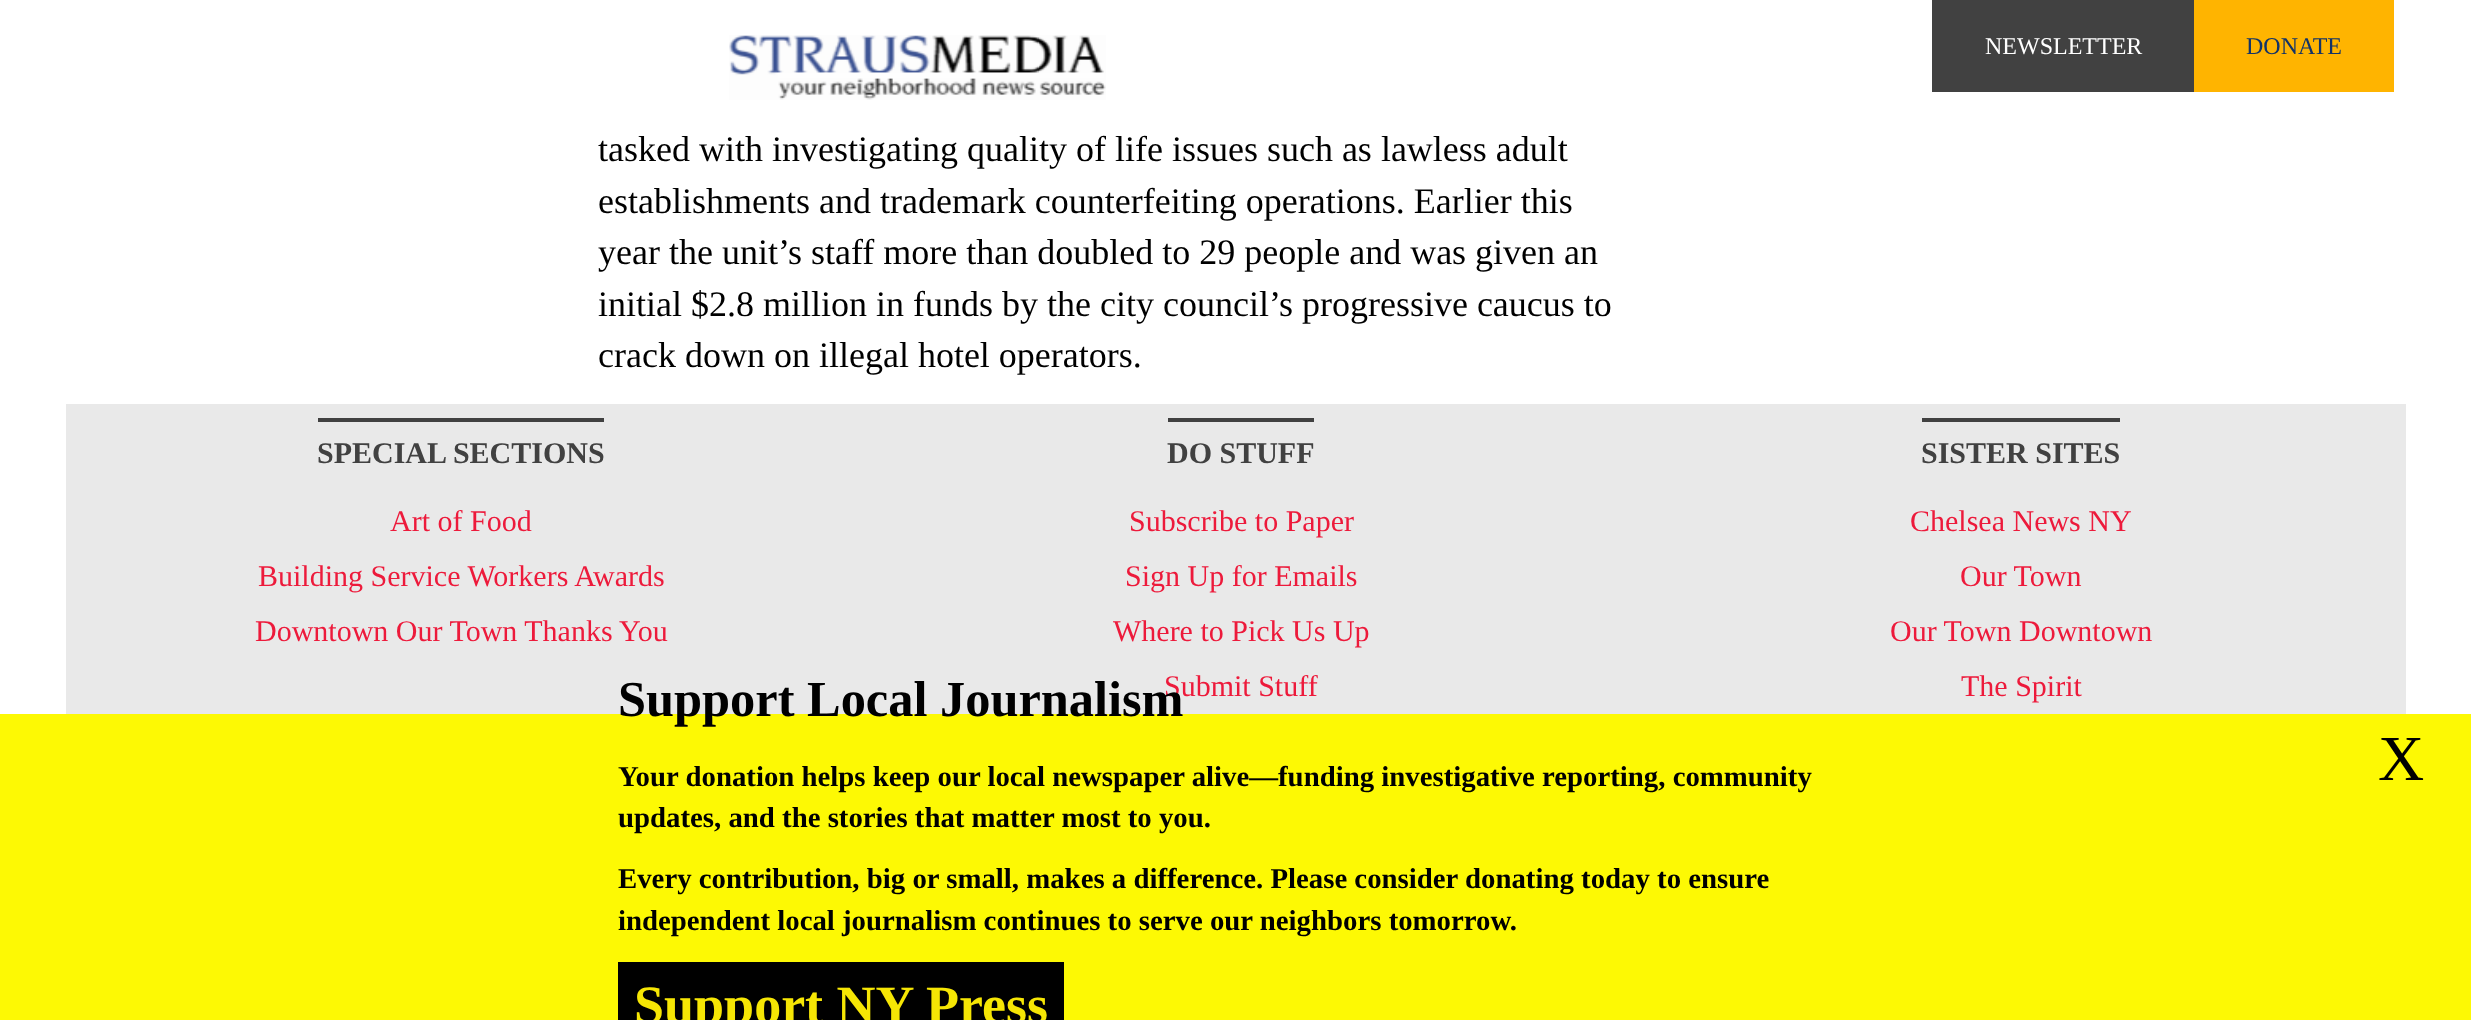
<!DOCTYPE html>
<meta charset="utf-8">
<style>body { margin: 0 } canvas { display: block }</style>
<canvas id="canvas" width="2471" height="1020"></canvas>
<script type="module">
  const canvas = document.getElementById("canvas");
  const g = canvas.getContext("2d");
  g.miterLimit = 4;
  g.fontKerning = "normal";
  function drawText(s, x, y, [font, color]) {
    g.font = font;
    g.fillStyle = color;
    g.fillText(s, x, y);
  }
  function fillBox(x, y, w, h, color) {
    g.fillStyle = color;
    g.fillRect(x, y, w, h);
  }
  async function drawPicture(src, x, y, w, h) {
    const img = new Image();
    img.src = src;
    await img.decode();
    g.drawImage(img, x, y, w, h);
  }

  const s1 = ["24px Liberation Serif", "#FFFFFF"];
  const s2 = ["24px Liberation Serif", "#133367"];
  const s3 = ["36px Liberation Serif", "#000000"];
  const s4 = ["bold 30px Liberation Serif", "#414141"];
  const s5 = ["30px Liberation Serif", "#ED1A3B"];
  const s6 = ["bold 50.4px Liberation Serif", "#000000"];
  const s7 = ["bold 28.8px Liberation Serif", "#000000"];
  const s8 = ["bold 54px Liberation Serif", "#F6E604"];
  const s9 = ["64px Liberation Serif", "#000000"];

  fillBox(0, 0, 2471, 1020, "#FFFFFF");
  await drawPicture("pic1.png", 729, 35, 377, 65);
  fillBox(1932, 0, 262, 92, "#414141");
  drawText("NEWSLETTER", 1985, 54, s1);
  fillBox(2194, 0, 200, 92, "#FFB400");
  drawText("DONATE", 2246, 54, s2);
  drawText("tasked with investigating quality of life issues such as lawless adult", 598, 161, s3);
  drawText("establishments and trademark counterfeiting operations. Earlier this", 598, 213, s3);
  drawText("year the unit’s staff more than doubled to 29 people and was given an", 598, 264, s3);
  drawText("initial $2.8 million in funds by the city council’s progressive caucus to", 598, 316, s3);
  drawText("crack down on illegal hotel operators.", 598, 367, s3);
  fillBox(66, 404, 2340, 310, "#E9E9E9");
  fillBox(318, 418, 286, 4, "#414141");
  drawText("SPECIAL SECTIONS", 317, 463, s4);
  drawText("Art of Food", 390, 531, s5);
  drawText("Building Service Workers Awards", 258, 586, s5);
  drawText("Downtown Our Town Thanks You", 255, 641, s5);
  fillBox(1168, 418, 146, 4, "#414141");
  drawText("DO STUFF", 1167, 463, s4);
  drawText("Subscribe to Paper", 1129, 531, s5);
  drawText("Sign Up for Emails", 1125, 586, s5);
  drawText("Where to Pick Us Up", 1113, 641, s5);
  drawText("Submit Stuff", 1164, 696, s5);
  fillBox(1922, 418, 198, 4, "#414141");
  drawText("SISTER SITES", 1921, 463, s4);
  drawText("Chelsea News NY", 1910, 531, s5);
  drawText("Our Town", 1960, 586, s5);
  drawText("Our Town Downtown", 1890, 641, s5);
  drawText("The Spirit", 1961, 696, s5);
  fillBox(0, 714, 2471, 306, "#FDF904");
  drawText("Support Local Journalism", 618, 716, s6);
  drawText("Your donation helps keep our local newspaper alive—funding investigative reporting, community", 618, 786, s7);
  drawText("updates, and the stories that matter most to you.", 618, 827, s7);
  drawText("Every contribution, big or small, makes a difference. Please consider donating today to ensure", 618, 888, s7);
  drawText("independent local journalism continues to serve our neighbors tomorrow.", 618, 930, s7);
  fillBox(618, 962, 446, 58, "#000000");
  drawText("Support NY Press", 634, 1023, s8);
  drawText("X", 2378, 780, s9);
</script>
